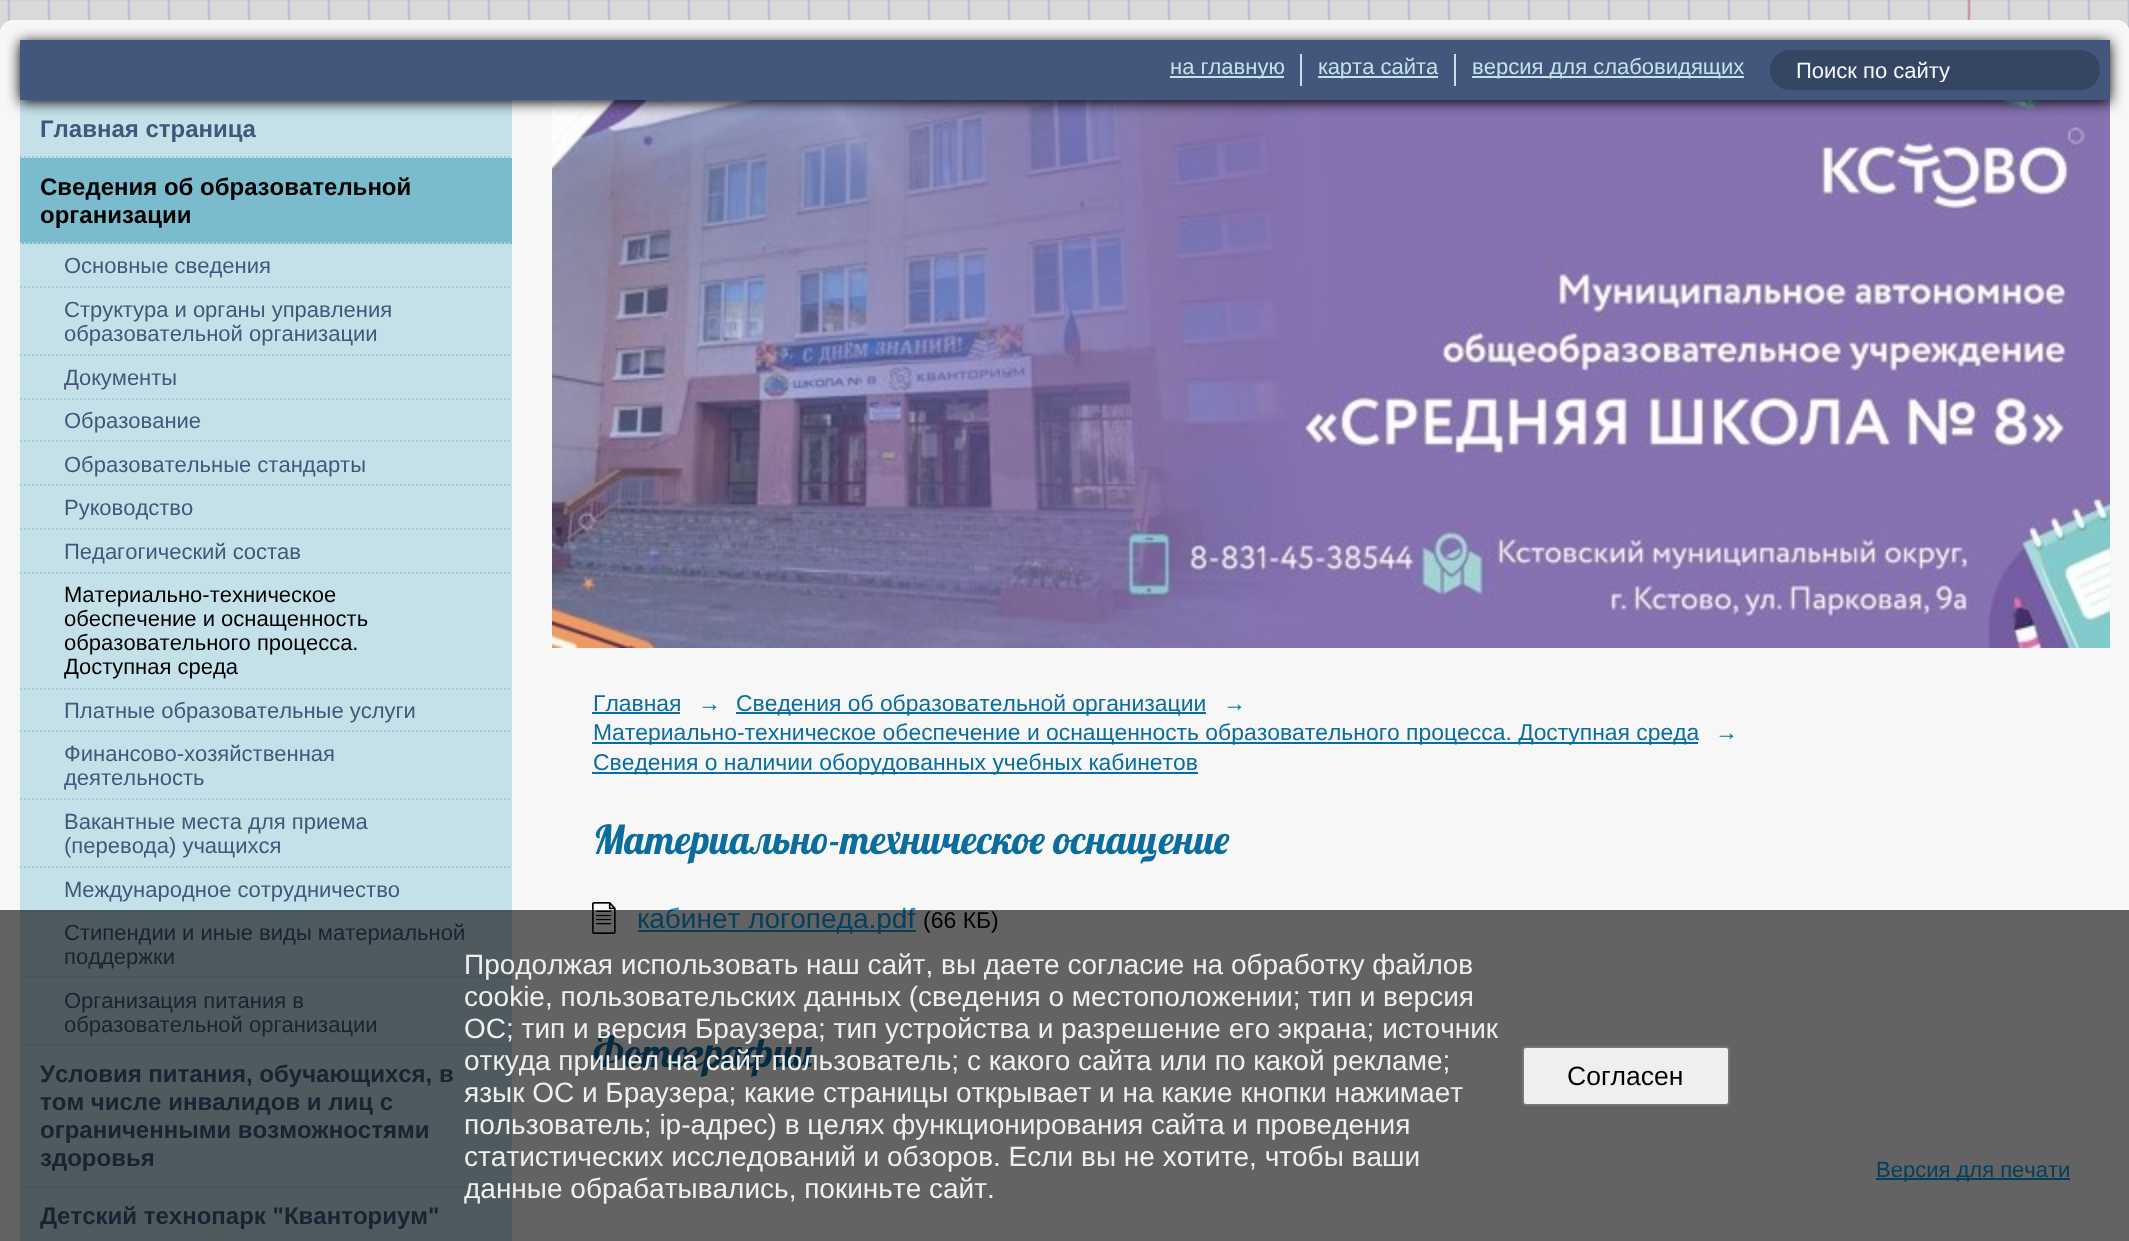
<!DOCTYPE html>
<meta charset="utf-8">
<style>body { margin: 0 } canvas { display: block }</style>
<canvas id="canvas" width="2129" height="1241"></canvas>
<script type="module">
  const canvas = document.getElementById("canvas");
  const g = canvas.getContext("2d");
  g.miterLimit = 4;
  g.fontKerning = "none";
  function drawText(s, x, y, [font, color]) {
    g.font = font;
    g.fillStyle = color;
    g.fillText(s, x, y);
  }
  function fillBox(x, y, w, h, color) {
    g.fillStyle = color;
    g.fillRect(x, y, w, h);
  }
  function fillRounded(x, y, w, h, r, color) {
    g.fillStyle = color;
    g.beginPath();
    g.roundRect(x, y, w, h, r);
    g.fill();
  }
  async function drawPicture(src, x, y, w, h) {
    const img = new Image();
    img.src = src;
    await img.decode();
    g.drawImage(img, x, y, w, h);
  }

  const s1 = ["22px Liberation Sans", "#C4E1E9"];
  const s2 = ["22px Liberation Sans", "#F5F7FA"];
  const s3 = ["bold 24px Liberation Sans", "#42577B"];
  const s4 = ["bold 24px Liberation Sans", "#000000"];
  const s5 = ["22px Liberation Sans", "#42577B"];
  const s6 = ["22px Liberation Sans", "#000000"];
  const s7 = ["22.9px Liberation Sans", "#0A6D9E"];
  const s8 = ["italic 22.9px Liberation Sans", "#0A6D9E"];
  const s9 = ["40px Lobster", "#0A6D9E"];
  const s10 = ["28px Liberation Sans", "#0F9EE6"];
  const s11 = ["23px Liberation Sans", "#000000"];
  const s12 = ["22px Liberation Sans", "#0F9EE6"];
  const s13 = ["28px Liberation Sans", "#EFEFEF"];
  const s14 = ["26.5px Liberation Sans", "#000000"];

  fillBox(0, 0, 2129, 1241, "#FFFFFF");
  await drawPicture("pic1.png", 0, 0, 2129, 34);
  g.beginPath();
  g.roundRect(-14, 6, 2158, 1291, 28);
  g.strokeStyle = "rgba(0, 0, 0, 0.15)";
  g.lineWidth = 28;
  g.stroke();
  fillRounded(0, 20, 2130, 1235, 14, "#F7F7F7");
  fillBox(20, 100, 492, 1141, "#C4E1E9");
  await drawPicture("pic2.png", 552, 100, 1558, 548);
  g.fillStyle = "#000000";
  g.filter = "blur(7px)";
  g.beginPath();
  g.rect(20, 42, 2090, 60);
  g.fill();
  g.filter = "none";
  fillBox(20, 40, 2090, 60, "#42577B");
  fillBox(1170, 76, 114, 2, "#C4E1E9");
  drawText("на главную", 1170, 74, s1);
  fillBox(1300, 54, 2, 32, "#C4E1E9");
  fillBox(1318, 76, 120, 2, "#C4E1E9");
  drawText("карта сайта", 1318, 74, s1);
  fillBox(1454, 54, 2, 32, "#C4E1E9");
  fillBox(1472, 76, 272, 2, "#C4E1E9");
  drawText("версия для слабовидящих", 1472, 74, s1);
  fillRounded(1770, 50, 330, 40, 20, "#354662");
  g.save();
  g.beginPath();
  g.rect(1796, 58, 278, 24);
  g.clip();
  drawText("Поиск по сайту", 1796, 78, s2);
  g.restore();
  g.beginPath();
  g.moveTo(20, 157);
  g.lineTo(512, 157);
  g.strokeStyle = "#9FCFDB";
  g.lineWidth = 2;
  g.setLineDash([2, 2]);
  g.stroke();
  drawText("Главная страница", 40, 137, s3);
  fillBox(20, 158, 492, 86, "#7ABCCD");
  g.beginPath();
  g.moveTo(20, 243);
  g.lineTo(512, 243);
  g.stroke();
  drawText("Сведения об образовательной", 40, 195, s4);
  drawText("организации", 40, 223, s4);
  g.beginPath();
  g.moveTo(20, 287);
  g.lineTo(512, 287);
  g.stroke();
  drawText("Основные сведения", 64, 273, s5);
  g.beginPath();
  g.moveTo(20, 355);
  g.lineTo(512, 355);
  g.stroke();
  drawText("Структура и органы управления", 64, 317, s5);
  drawText("образовательной организации", 64, 341, s5);
  g.beginPath();
  g.moveTo(20, 399);
  g.lineTo(512, 399);
  g.stroke();
  drawText("Документы", 64, 385, s5);
  g.beginPath();
  g.moveTo(20, 441);
  g.lineTo(512, 441);
  g.stroke();
  drawText("Образование", 64, 428, s5);
  g.beginPath();
  g.moveTo(20, 485);
  g.lineTo(512, 485);
  g.stroke();
  drawText("Образовательные стандарты", 64, 472, s5);
  g.beginPath();
  g.moveTo(20, 529);
  g.lineTo(512, 529);
  g.stroke();
  drawText("Руководство", 64, 515, s5);
  g.beginPath();
  g.moveTo(20, 573);
  g.lineTo(512, 573);
  g.stroke();
  drawText("Педагогический состав", 64, 559, s5);
  g.beginPath();
  g.moveTo(20, 689);
  g.lineTo(512, 689);
  g.stroke();
  drawText("Материально-техническое", 64, 602, s6);
  drawText("обеспечение и оснащенность", 64, 626, s6);
  drawText("образовательного процесса.", 64, 650, s6);
  drawText("Доступная среда", 64, 674, s6);
  g.beginPath();
  g.moveTo(20, 731);
  g.lineTo(512, 731);
  g.stroke();
  drawText("Платные образовательные услуги", 64, 718, s5);
  g.beginPath();
  g.moveTo(20, 799);
  g.lineTo(512, 799);
  g.stroke();
  drawText("Финансово-хозяйственная", 64, 761, s5);
  drawText("деятельность", 64, 785, s5);
  g.beginPath();
  g.moveTo(20, 867);
  g.lineTo(512, 867);
  g.stroke();
  drawText("Вакантные места для приема", 64, 829, s5);
  drawText("(перевода) учащихся", 64, 853, s5);
  g.beginPath();
  g.moveTo(20, 911);
  g.lineTo(512, 911);
  g.stroke();
  drawText("Международное сотрудничество", 64, 897, s5);
  g.beginPath();
  g.moveTo(20, 977);
  g.lineTo(512, 977);
  g.stroke();
  drawText("Стипендии и иные виды материальной", 64, 940, s5);
  drawText("поддержки", 64, 964, s5);
  g.beginPath();
  g.moveTo(20, 1045);
  g.lineTo(512, 1045);
  g.stroke();
  drawText("Организация питания в", 64, 1008, s5);
  drawText("образовательной организации", 64, 1032, s5);
  g.beginPath();
  g.moveTo(20, 1187);
  g.lineTo(512, 1187);
  g.stroke();
  drawText("Условия питания, обучающихся, в", 40, 1082, s3);
  drawText("том числе инвалидов и лиц с", 40, 1110, s3);
  drawText("ограниченными возможностями", 40, 1138, s3);
  drawText("здоровья", 40, 1166, s3);
  drawText("Детский технопарк \"Кванториум\"", 40, 1224, s3);
  drawText("Главная", 593, 711, s7);
  fillBox(592, 712, 88, 2, "#0A6D9E");
  drawText("→", 698, 711, s8);
  fillBox(736, 712, 470, 2, "#0A6D9E");
  drawText("Сведения об образовательной организации", 736, 711, s7);
  drawText("→", 1223, 711, s8);
  fillBox(592, 742, 1106, 2, "#0A6D9E");
  drawText("Материально-техническое обеспечение и оснащенность образовательного процесса. Доступная среда", 593, 740, s7);
  drawText("→", 1715, 740, s8);
  fillBox(592, 772, 606, 2, "#0A6D9E");
  drawText("Сведения о наличии оборудованных учебных кабинетов", 593, 770, s7);
  drawText("Материально-техническое оснащение", 593, 854, s9);
  await drawPicture("pic3.png", 592, 902, 24, 32);
  fillBox(638, 930, 278, 2, "#0F9EE6");
  drawText("кабинет логопеда.pdf", 637, 928, s10);
  drawText("(66 КБ)", 923, 928, s11);
  drawText("Фотографии", 593, 1067, s9);
  fillBox(1876, 1178, 194, 2, "#0F9EE6");
  drawText("Версия для печати", 1876, 1177, s12);
  fillBox(0, 910, 2129, 331, "rgba(0, 0, 0, 0.6)");
  drawText("Продолжая использовать наш сайт,", 464, 974, s13);
  drawText("вы даете согласие на обработку файлов", 941, 974, s13);
  drawText("cookie, пользовательских данных (сведения о местоположении; тип и версия", 464, 1006, s13);
  drawText("ОС; тип и версия Браузера; тип устройства и разрешение его экрана; источник", 464, 1038, s13);
  drawText("откуда пришел на сайт пользователь;", 464, 1070, s13);
  drawText("с какого сайта или по какой рекламе;", 967, 1070, s13);
  drawText("язык ОС и Браузера; какие страницы открывает и на какие кнопки нажимает", 464, 1102, s13);
  drawText("пользователь; ip-адрес) в целях функционирования сайта", 464, 1134, s13);
  drawText("и проведения", 1232, 1134, s13);
  drawText("статистических исследований и обзоров. Если вы не хотите, чтобы ваши", 464, 1166, s13);
  drawText("данные обрабатывались, покиньте сайт.", 464, 1198, s13);
  g.beginPath();
  g.roundRect(1523, 1047, 206, 58, 3);
  g.fill();
  g.strokeStyle = "#767676";
  g.setLineDash([]);
  g.stroke();
  drawText("Согласен", 1567, 1085, s14);
</script>
